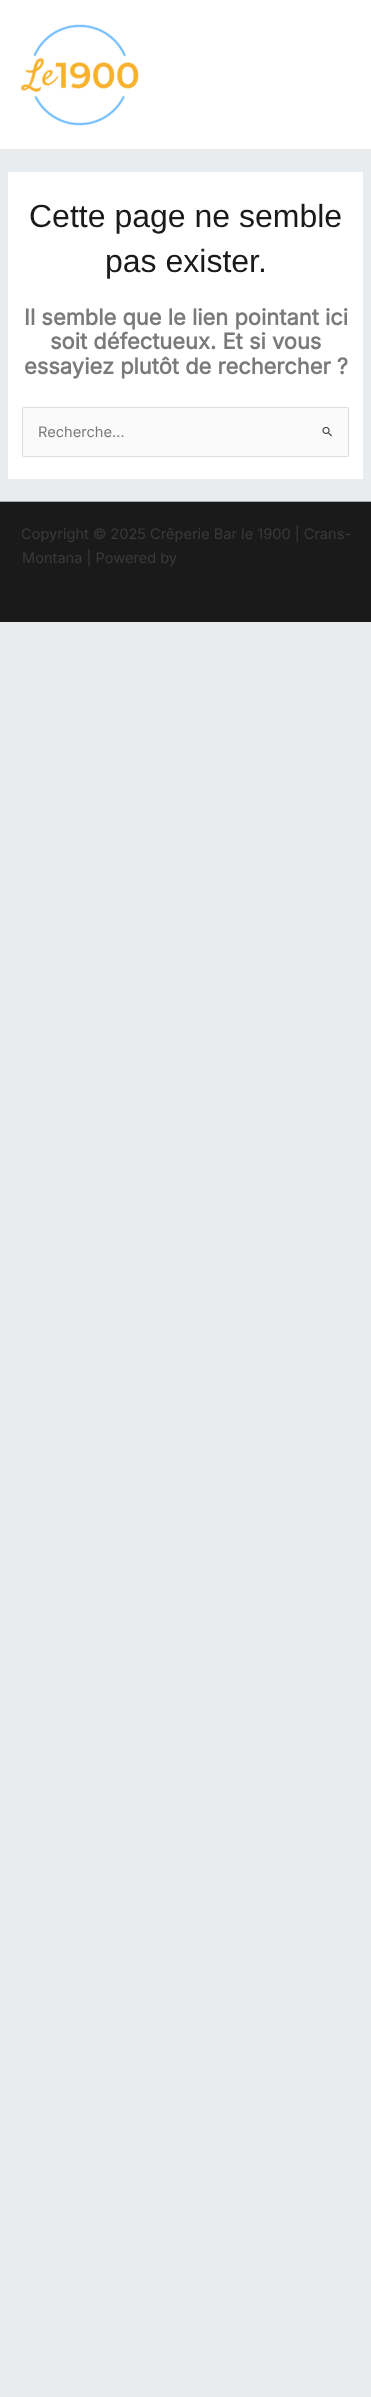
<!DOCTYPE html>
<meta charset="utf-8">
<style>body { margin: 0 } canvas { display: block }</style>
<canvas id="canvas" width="371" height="2397"></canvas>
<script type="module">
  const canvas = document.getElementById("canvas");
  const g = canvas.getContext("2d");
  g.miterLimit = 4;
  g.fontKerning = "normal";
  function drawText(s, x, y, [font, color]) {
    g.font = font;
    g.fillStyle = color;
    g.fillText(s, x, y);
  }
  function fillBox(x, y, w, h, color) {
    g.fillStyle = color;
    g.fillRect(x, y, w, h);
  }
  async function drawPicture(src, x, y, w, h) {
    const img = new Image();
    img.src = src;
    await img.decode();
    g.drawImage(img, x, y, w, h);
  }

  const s1 = ["32px Liberation Sans", "#1A1A1A"];
  const s2 = ["bold 21.9px Inter", "#7A7A7A"];
  const s3 = ["14.6px Inter", "#7A7A7A"];
  const s4 = ["14.6px Inter", "#3A3A3A"];

  fillBox(0, 0, 371, 2397, "#E9ECEF");
  fillBox(0, 0, 371, 149, "#FFFFFF");
  fillBox(0, 149, 371, 1, "#EAEAEA");
  await drawPicture("pic1.png", 20, 24, 119, 102);
  fillBox(8, 172, 355, 307, "#FFFFFF");
  drawText("Cette page ne semble", 29, 227, s1);
  drawText("pas exister.", 105, 272, s1);
  drawText("Il semble que le lien pointant ici", 24, 325, s2);
  drawText("soit défectueux. Et si vous", 50, 349, s2);
  drawText("essayiez plutôt de rechercher ?", 24, 374, s2);
  g.fillStyle = "#FAFAFA";
  g.beginPath();
  g.roundRect(22.5, 407.5, 326, 49, 1.5);
  g.fill();
  g.strokeStyle = "#DDDDDD";
  g.stroke();
  drawText("Recherche…", 38, 437, s3);
  await drawPicture("pic2.png", 322, 426, 10, 11);
  fillBox(0, 502, 371, 120, "#1A1A1A");
  fillBox(0, 501, 371, 1, "#AAAAAA");
  drawText("Copyright © 2025 Crêperie Bar le 1900 | Crans-", 21, 539, s4);
  drawText("Montana | Powered by", 22, 563, s4);
</script>
